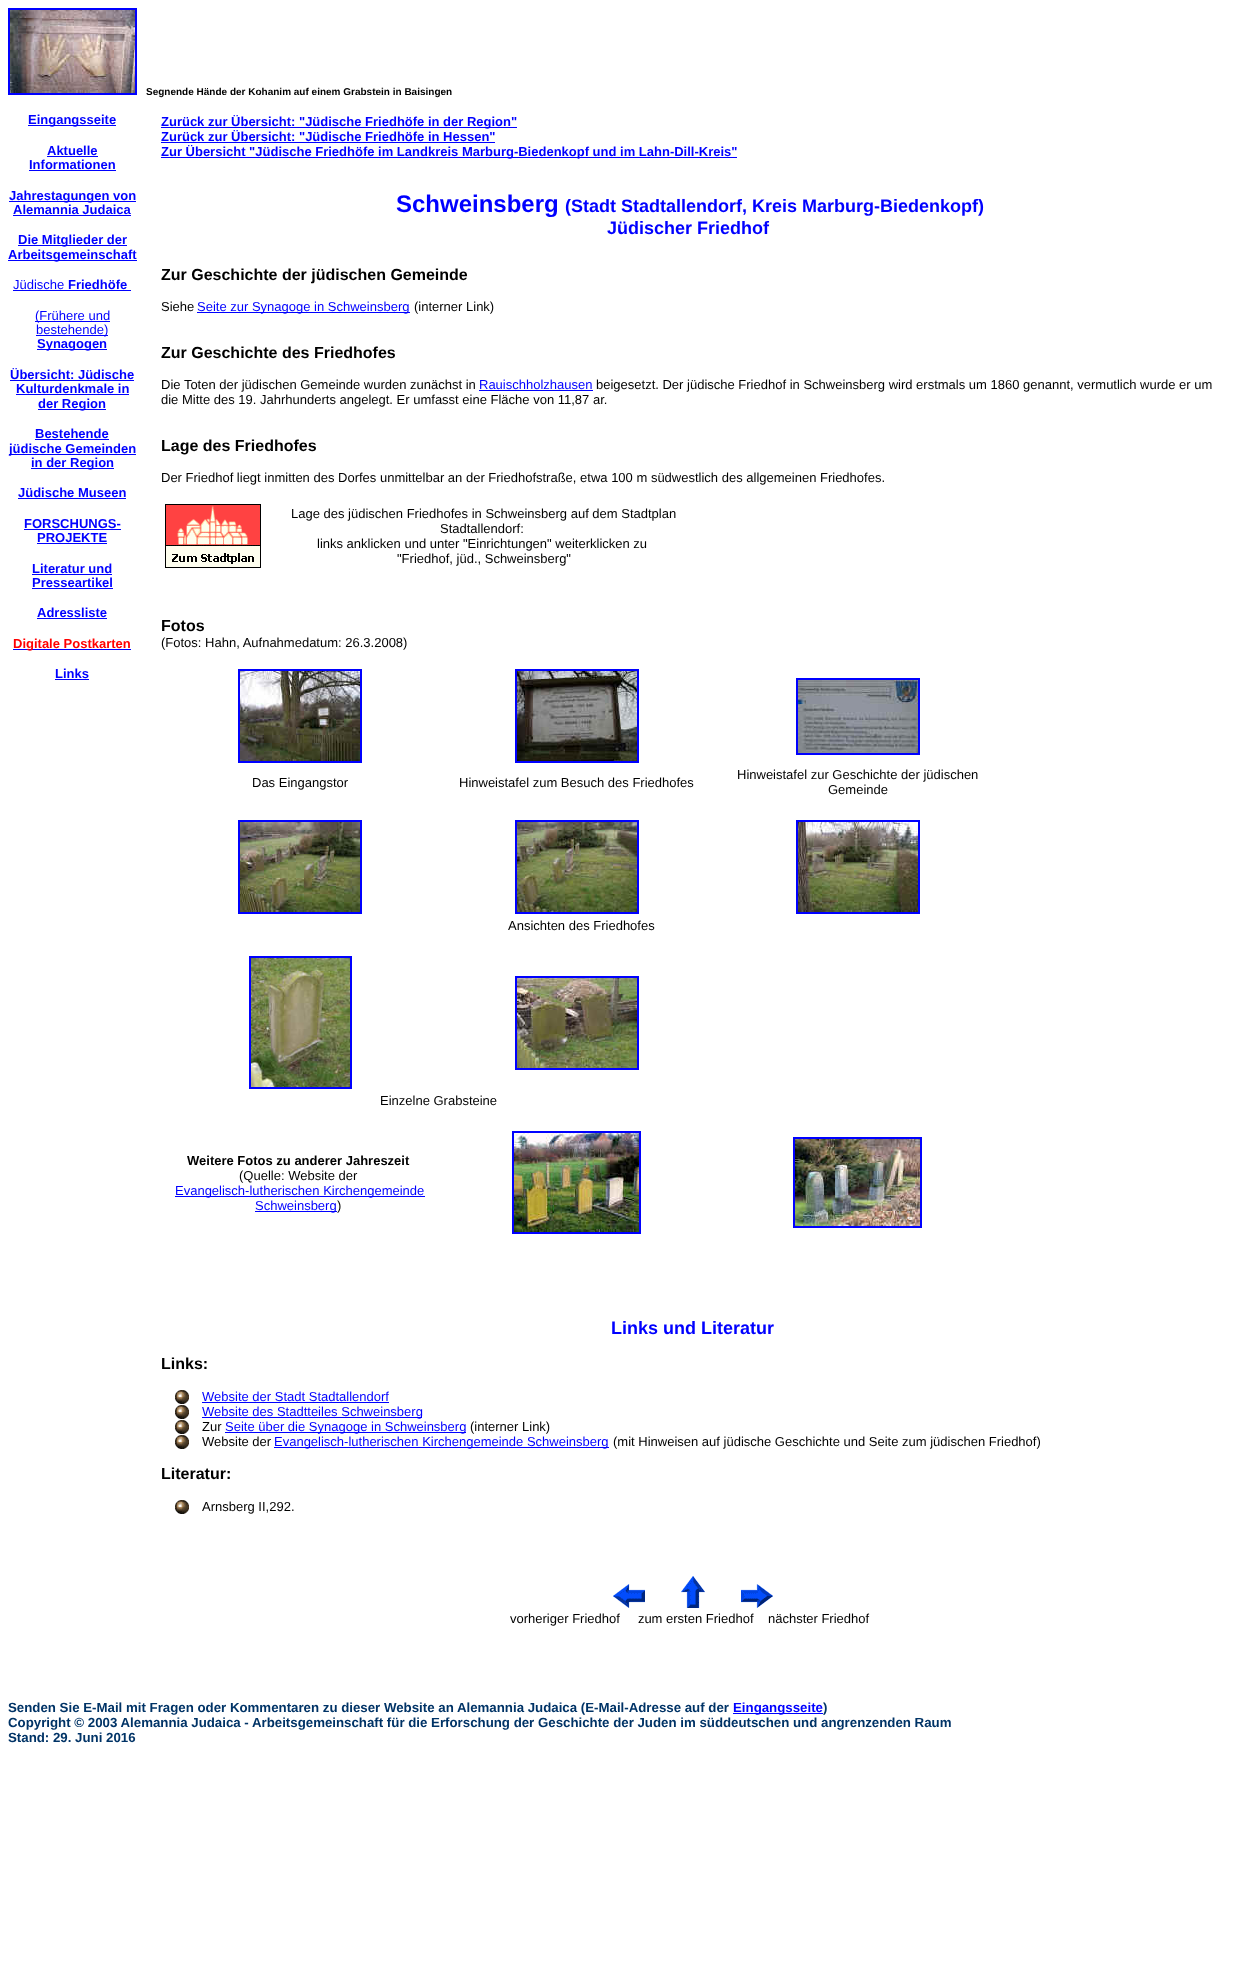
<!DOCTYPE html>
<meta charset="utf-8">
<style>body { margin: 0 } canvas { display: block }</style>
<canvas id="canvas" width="1233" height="1987"></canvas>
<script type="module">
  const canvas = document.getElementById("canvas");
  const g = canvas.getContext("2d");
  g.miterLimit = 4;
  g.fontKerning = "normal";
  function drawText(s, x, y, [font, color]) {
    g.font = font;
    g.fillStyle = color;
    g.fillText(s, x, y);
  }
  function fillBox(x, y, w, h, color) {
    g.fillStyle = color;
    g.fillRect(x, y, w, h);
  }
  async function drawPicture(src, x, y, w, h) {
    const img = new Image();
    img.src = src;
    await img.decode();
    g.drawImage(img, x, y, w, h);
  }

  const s1 = ["bold 10px Liberation Sans", "#000000"];
  const s2 = ["bold 13px Liberation Sans", "#0000FF"];
  const s3 = ["13px Liberation Sans", "#0000FF"];
  const s4 = ["bold 13px Liberation Sans", "#FF0000"];
  const s5 = ["bold 24px Liberation Sans", "#0000FF"];
  const s6 = ["bold 18px Liberation Sans", "#0000FF"];
  const s7 = ["bold 16px Liberation Sans", "#000000"];
  const s8 = ["13px Liberation Sans", "#000000"];
  const s9 = ["bold 13px Liberation Sans", "#000000"];
  const s10 = ["bold 13.28px Liberation Sans", "#003366"];
  const s11 = ["bold 13.28px Liberation Sans", "#0000FF"];

  fillBox(0, 0, 1233, 1987, "#FFFFFF");
  g.strokeStyle = "#0000FF";
  g.lineWidth = 2;
  g.strokeRect(9, 9, 127, 85);
  await drawPicture("pic1.png", 10, 10, 125, 83);
  drawText("Segnende Hände der Kohanim auf einem Grabstein in Baisingen", 146, 95, s1);
  fillBox(28, 125, 88, 1, "#0000FF");
  drawText("Eingangsseite", 28, 124, s2);
  drawText("Aktuelle", 47, 155, s2);
  fillBox(47, 156, 51, 1, "#0000FF");
  drawText("Informationen", 29, 169, s2);
  fillBox(29, 170, 87, 1, "#0000FF");
  fillBox(9, 201, 127, 1, "#0000FF");
  drawText("Jahrestagungen von", 9, 200, s2);
  drawText("Alemannia Judaica", 13, 214, s2);
  fillBox(13, 215, 118, 1, "#0000FF");
  fillBox(18, 245, 109, 1, "#0000FF");
  drawText("Die Mitglieder der", 18, 244, s2);
  fillBox(8, 260, 129, 1, "#0000FF");
  drawText("Arbeitsgemeinschaft", 8, 259, s2);
  drawText("Jüdische", 13, 289, s3);
  fillBox(13, 290, 118, 1, "#0000FF");
  drawText("Friedhöfe", 68, 289, s2);
  fillBox(35, 321, 75, 1, "#0000FF");
  drawText("(Frühere und", 35, 320, s3);
  fillBox(36, 335, 72, 1, "#0000FF");
  drawText("bestehende)", 36, 334, s3);
  fillBox(37, 349, 70, 1, "#0000FF");
  drawText("Synagogen", 37, 348, s2);
  drawText("Übersicht: Jüdische", 10, 379, s2);
  fillBox(10, 380, 124, 1, "#0000FF");
  drawText("Kulturdenkmale in", 16, 393, s2);
  fillBox(16, 394, 113, 1, "#0000FF");
  fillBox(38, 409, 68, 1, "#0000FF");
  drawText("der Region", 38, 408, s2);
  drawText("Bestehende", 35, 438, s2);
  fillBox(35, 439, 74, 1, "#0000FF");
  fillBox(9, 454, 127, 1, "#0000FF");
  drawText("jüdische Gemeinden", 9, 453, s2);
  fillBox(31, 468, 83, 1, "#0000FF");
  drawText("in der Region", 31, 467, s2);
  drawText("Jüdische Museen", 18, 497, s2);
  fillBox(18, 498, 108, 1, "#0000FF");
  drawText("FORSCHUNGS-", 24, 528, s2);
  fillBox(24, 529, 97, 1, "#0000FF");
  drawText("PROJEKTE", 37, 542, s2);
  fillBox(37, 543, 70, 1, "#0000FF");
  drawText("Literatur und", 32, 573, s2);
  fillBox(32, 574, 80, 1, "#0000FF");
  drawText("Presseartikel", 32, 587, s2);
  fillBox(32, 588, 81, 1, "#0000FF");
  drawText("Adressliste", 37, 617, s2);
  fillBox(37, 618, 70, 1, "#0000FF");
  fillBox(13, 649, 118, 1, "#0000FF");
  drawText("Digitale Postkarten", 13, 648, s4);
  drawText("Links", 55, 678, s2);
  fillBox(55, 679, 34, 1, "#0000FF");
  fillBox(161, 127, 356, 1, "#0000FF");
  drawText("Zurück zur Übersicht: \"Jüdische Friedhöfe in der Region\"", 161, 126, s2);
  drawText("Zurück zur Übersicht: \"Jüdische Friedhöfe in Hessen\"", 161, 141, s2);
  fillBox(161, 142, 334, 1, "#0000FF");
  fillBox(161, 157, 576, 1, "#0000FF");
  drawText("Zur Übersicht \"Jüdische Friedhöfe im Landkreis Marburg-Biedenkopf und im Lahn-Dill-Kreis\"", 161, 156, s2);
  drawText("Schweinsberg", 396, 212, s5);
  drawText("(Stadt Stadtallendorf, Kreis Marburg-Biedenkopf)", 565, 212, s6);
  drawText("Jüdischer Friedhof", 607, 234, s6);
  drawText("Zur Geschichte der jüdischen Gemeinde", 161, 280, s7);
  drawText("Siehe", 161, 311, s8);
  fillBox(197, 312, 213, 1, "#0000FF");
  drawText("Seite zur Synagoge in Schweinsberg", 197, 311, s3);
  drawText("(interner Link)", 414, 311, s8);
  drawText("Zur Geschichte des Friedhofes", 161, 358, s7);
  drawText("Die Toten der jüdischen Gemeinde wurden zunächst in", 161, 389, s8);
  drawText("Rauischholzhausen", 479, 389, s3);
  fillBox(479, 390, 114, 1, "#0000FF");
  drawText("beigesetzt. Der jüdische Friedhof in Schweinsberg wird erstmals um 1860 genannt, vermutlich wurde er um", 596, 389, s8);
  drawText("die Mitte des 19. Jahrhunderts angelegt. Er umfasst eine Fläche von 11,87 ar.", 161, 404, s8);
  drawText("Lage des Friedhofes", 161, 451, s7);
  drawText("Der Friedhof liegt inmitten des Dorfes unmittelbar an der Friedhofstraße, etwa 100 m südwestlich des allgemeinen Friedhofes.", 161, 482, s8);
  await drawPicture("pic2.png", 165, 504, 96, 64);
  drawText("Lage des jüdischen Friedhofes in Schweinsberg auf dem Stadtplan", 291, 518, s8);
  drawText("Stadtallendorf:", 440, 533, s8);
  drawText("links anklicken und unter \"Einrichtungen\" weiterklicken zu", 317, 548, s8);
  drawText("\"Friedhof, jüd., Schweinsberg\"", 397, 563, s8);
  drawText("Fotos", 161, 631, s7);
  drawText("(Fotos: Hahn, Aufnahmedatum: 26.3.2008)", 161, 647, s8);
  g.strokeRect(239, 670, 122, 92);
  await drawPicture("pic3.png", 240, 671, 120, 90);
  g.strokeRect(516, 670, 122, 92);
  await drawPicture("pic4.png", 517, 671, 120, 90);
  g.strokeRect(797, 679, 122, 75);
  await drawPicture("pic5.png", 798, 680, 120, 73);
  drawText("Das Eingangstor", 252, 787, s8);
  drawText("Hinweistafel zum Besuch des Friedhofes", 459, 787, s8);
  drawText("Hinweistafel zur Geschichte der jüdischen", 737, 779, s8);
  drawText("Gemeinde", 828, 794, s8);
  g.strokeRect(239, 821, 122, 92);
  await drawPicture("pic6.png", 240, 822, 120, 90);
  g.strokeRect(516, 821, 122, 92);
  await drawPicture("pic7.png", 517, 822, 120, 90);
  g.strokeRect(797, 821, 122, 92);
  await drawPicture("pic8.png", 798, 822, 120, 90);
  drawText("Ansichten des Friedhofes", 508, 930, s8);
  g.strokeRect(250, 957, 101, 131);
  await drawPicture("pic9.png", 251, 958, 99, 129);
  g.strokeRect(516, 977, 122, 92);
  await drawPicture("pic10.png", 517, 978, 120, 90);
  drawText("Einzelne Grabsteine", 380, 1105, s8);
  drawText("Weitere Fotos zu anderer Jahreszeit", 187, 1165, s9);
  drawText("(Quelle: Website der", 239, 1180, s8);
  fillBox(175, 1196, 250, 1, "#0000FF");
  drawText("Evangelisch-lutherischen Kirchengemeinde", 175, 1195, s3);
  fillBox(255, 1211, 82, 1, "#0000FF");
  drawText("Schweinsberg", 255, 1210, s3);
  drawText(")", 337, 1210, s8);
  g.strokeRect(513, 1132, 127, 101);
  await drawPicture("pic11.png", 514, 1133, 125, 99);
  g.strokeRect(794, 1138, 127, 89);
  await drawPicture("pic12.png", 795, 1139, 125, 87);
  drawText("Links und Literatur", 611, 1334, s6);
  drawText("Links:", 161, 1369, s7);
  await drawPicture("pic13.png", 175, 1390, 14, 14);
  drawText("Website der Stadt Stadtallendorf", 202, 1401, s3);
  fillBox(202, 1402, 187, 1, "#0000FF");
  await drawPicture("pic13.png", 175, 1405, 14, 14);
  fillBox(202, 1417, 220, 1, "#0000FF");
  drawText("Website des Stadtteiles Schweinsberg", 202, 1416, s3);
  await drawPicture("pic13.png", 175, 1420, 14, 14);
  drawText("Zur", 202, 1431, s8);
  fillBox(225, 1432, 241, 1, "#0000FF");
  drawText("Seite über die Synagoge in Schweinsberg", 225, 1431, s3);
  drawText("(interner Link)", 470, 1431, s8);
  await drawPicture("pic13.png", 175, 1435, 14, 14);
  drawText("Website der", 202, 1446, s8);
  fillBox(274, 1447, 335, 1, "#0000FF");
  drawText("Evangelisch-lutherischen Kirchengemeinde Schweinsberg", 274, 1446, s3);
  drawText("(mit Hinweisen auf jüdische Geschichte und Seite zum jüdischen Friedhof)", 613, 1446, s8);
  drawText("Literatur:", 161, 1479, s7);
  await drawPicture("pic13.png", 175, 1500, 14, 14);
  drawText("Arnsberg II,292.", 202, 1511, s8);
  await drawPicture("pic14.png", 613, 1584, 32, 24);
  await drawPicture("pic15.png", 681, 1576, 24, 32);
  await drawPicture("pic16.png", 741, 1584, 32, 24);
  drawText("vorheriger Friedhof     zum ersten Friedhof    nächster Friedhof", 510, 1623, s8);
  drawText("Senden Sie E-Mail mit Fragen oder Kommentaren zu dieser Website an Alemannia Judaica (E-Mail-Adresse auf der", 8, 1712, s10);
  fillBox(733, 1713, 90, 1, "#0000FF");
  drawText("Eingangsseite", 733, 1712, s11);
  drawText(")", 823, 1712, s10);
  drawText("Copyright © 2003 Alemannia Judaica - Arbeitsgemeinschaft für die Erforschung der Geschichte der Juden im süddeutschen und angrenzenden Raum", 8, 1727, s10);
  drawText("Stand: 29. Juni 2016", 8, 1742, s10);
</script>
